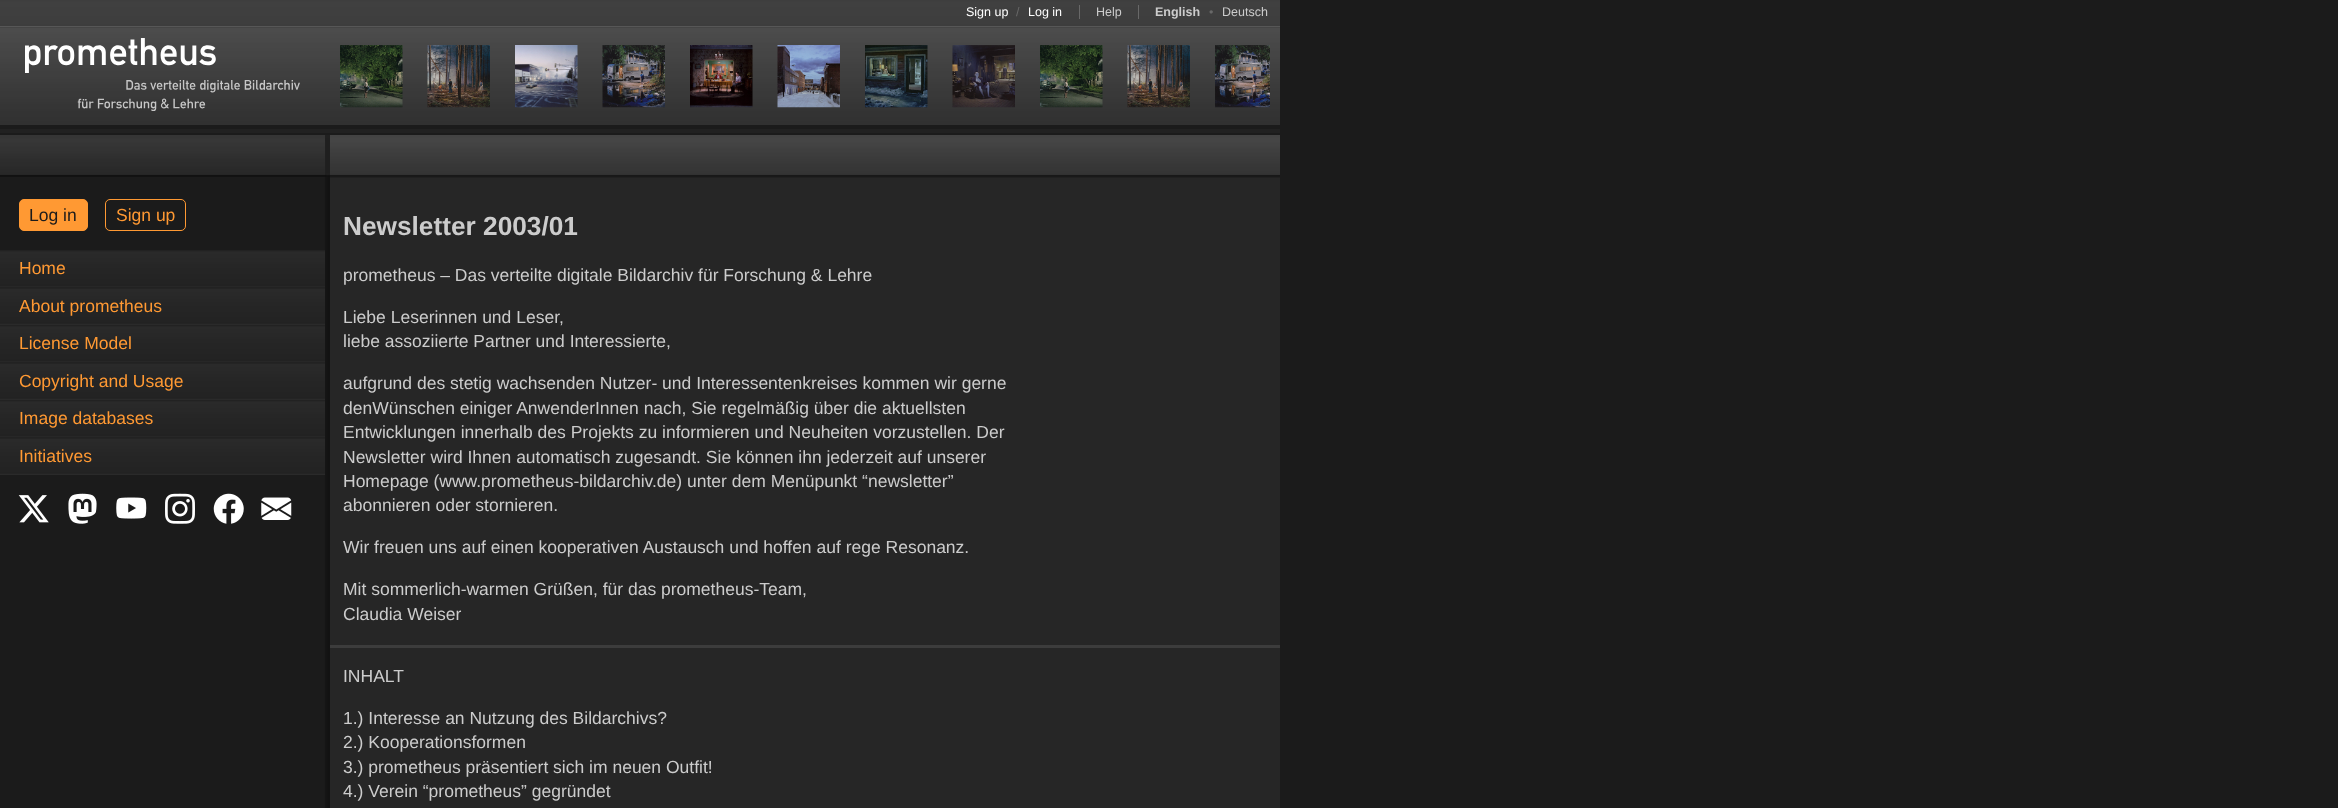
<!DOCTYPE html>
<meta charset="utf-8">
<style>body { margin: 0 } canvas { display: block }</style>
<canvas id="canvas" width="2338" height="808"></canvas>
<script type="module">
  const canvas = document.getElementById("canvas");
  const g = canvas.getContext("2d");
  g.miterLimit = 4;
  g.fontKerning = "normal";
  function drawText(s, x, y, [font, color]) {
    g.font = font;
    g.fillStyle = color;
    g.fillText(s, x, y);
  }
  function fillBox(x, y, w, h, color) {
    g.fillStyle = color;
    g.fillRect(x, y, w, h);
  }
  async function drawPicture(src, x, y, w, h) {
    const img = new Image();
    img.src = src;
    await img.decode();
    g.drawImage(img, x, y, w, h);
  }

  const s1 = ["12.5px Liberation Sans", "#FFFFFF"];
  const s2 = ["12.5px Liberation Sans", "#686868"];
  const s3 = ["12.5px Liberation Sans", "#CCCCCC"];
  const s4 = ["bold 12.5px Liberation Sans", "#CCCCCC"];
  const s5 = ["17.5px Liberation Sans", "#1B1B1B"];
  const s6 = ["17.5px Liberation Sans", "#FF9933"];
  const s7 = ["bold 26.25px Liberation Sans", "#CCCCCC"];
  const s8 = ["17.5px Liberation Sans", "#CCCCCC"];

  fillBox(0, 0, 2338, 808, "#1B1B1B");
  await drawPicture("pic1.png", 0, 0, 1280, 28);
  drawText("Sign up", 966, 16, s1);
  drawText("/", 1016, 16, s2);
  drawText("Log in", 1028, 16, s1);
  drawText("Help", 1096, 16, s3);
  fillBox(1079, 5, 1, 14, "#686868");
  drawText("English", 1155, 16, s4);
  fillBox(1138, 5, 1, 14, "#686868");
  drawText("•", 1209, 16, s2);
  drawText("Deutsch", 1222, 16, s3);
  await drawPicture("pic2.png", 0, 27, 1280, 98);
  await drawPicture("pic3.png", 25, 38, 275, 73);
  await drawPicture("pic4.png", 340, 45, 63, 63);
  await drawPicture("pic5.png", 427, 45, 63, 63);
  await drawPicture("pic6.png", 515, 45, 63, 63);
  await drawPicture("pic7.png", 602, 45, 63, 63);
  await drawPicture("pic8.png", 690, 45, 63, 63);
  await drawPicture("pic9.png", 777, 45, 63, 63);
  await drawPicture("pic10.png", 865, 45, 63, 63);
  await drawPicture("pic11.png", 952, 45, 63, 63);
  await drawPicture("pic12.png", 1040, 45, 63, 63);
  await drawPicture("pic13.png", 1127, 45, 63, 63);
  await drawPicture("pic14.png", 1215, 45, 55, 63);
  fillBox(0, 129, 1280, 4, "#212121");
  fillBox(330, 177, 950, 631, "#262626");
  await drawPicture("pic15.png", 0, 177, 330, 631);
  await drawPicture("pic16.png", 0, 135, 325, 42);
  await drawPicture("pic17.png", 325, 135, 5, 42);
  g.fillStyle = "#FF9933";
  g.beginPath();
  g.roundRect(19.5, 199.5, 68, 31, 4.5);
  g.fill();
  g.strokeStyle = "#FF9933";
  g.stroke();
  drawText("Log in", 29, 221, s5);
  g.beginPath();
  g.roundRect(105.5, 199.5, 80, 31, 4.5);
  g.stroke();
  drawText("Sign up", 116, 221, s6);
  await drawPicture("pic18.png", 0, 250, 325, 38);
  drawText("Home", 19, 274, s6);
  await drawPicture("pic19.png", 0, 288, 325, 37);
  drawText("About prometheus", 19, 312, s6);
  await drawPicture("pic18.png", 0, 325, 325, 38);
  drawText("License Model", 19, 349, s6);
  await drawPicture("pic19.png", 0, 363, 325, 37);
  drawText("Copyright and Usage", 19, 387, s6);
  await drawPicture("pic18.png", 0, 400, 325, 38);
  drawText("Image databases", 19, 424, s6);
  await drawPicture("pic19.png", 0, 438, 325, 37);
  drawText("Initiatives", 19, 462, s6);
  await drawPicture("pic20.png", 18, 495, 31, 28);
  await drawPicture("pic21.png", 68, 493, 29, 31);
  await drawPicture("pic22.png", 116, 497, 31, 22);
  await drawPicture("pic23.png", 165, 493, 30, 31);
  await drawPicture("pic24.png", 213, 493, 31, 31);
  await drawPicture("pic25.png", 261, 497, 31, 23);
  await drawPicture("pic26.png", 330, 135, 950, 43);
  drawText("Newsletter 2003/01", 343, 235, s7);
  drawText("prometheus – Das verteilte digitale Bildarchiv für Forschung & Lehre", 343, 281, s8);
  drawText("Liebe Leserinnen und Leser,", 343, 323, s8);
  drawText("liebe assoziierte Partner und Interessierte,", 343, 347, s8);
  drawText("aufgrund des stetig wachsenden Nutzer- und Interessentenkreises kommen wir gerne", 343, 389, s8);
  drawText("denWünschen einiger AnwenderInnen nach, Sie regelmäßig über die aktuellsten", 343, 414, s8);
  drawText("Entwicklungen innerhalb des Projekts zu informieren und Neuheiten vorzustellen. Der", 343, 438, s8);
  drawText("Newsletter wird Ihnen automatisch zugesandt. Sie können ihn jederzeit auf unserer", 343, 463, s8);
  drawText("Homepage (www.prometheus-bildarchiv.de) unter dem Menüpunkt “newsletter”", 343, 487, s8);
  drawText("abonnieren oder stornieren.", 343, 511, s8);
  drawText("Wir freuen uns auf einen kooperativen Austausch und hoffen auf rege Resonanz.", 343, 553, s8);
  drawText("Mit sommerlich-warmen Grüßen, für das prometheus-Team,", 343, 595, s8);
  drawText("Claudia Weiser", 343, 620, s8);
  fillBox(330, 645, 950, 3, "#3C3C3C");
  drawText("INHALT", 343, 682, s8);
  drawText("1.) Interesse an Nutzung des Bildarchivs?", 343, 724, s8);
  drawText("2.) Kooperationsformen", 343, 748, s8);
  drawText("3.) prometheus präsentiert sich im neuen Outfit!", 343, 773, s8);
  drawText("4.) Verein “prometheus” gegründet", 343, 797, s8);
</script>
